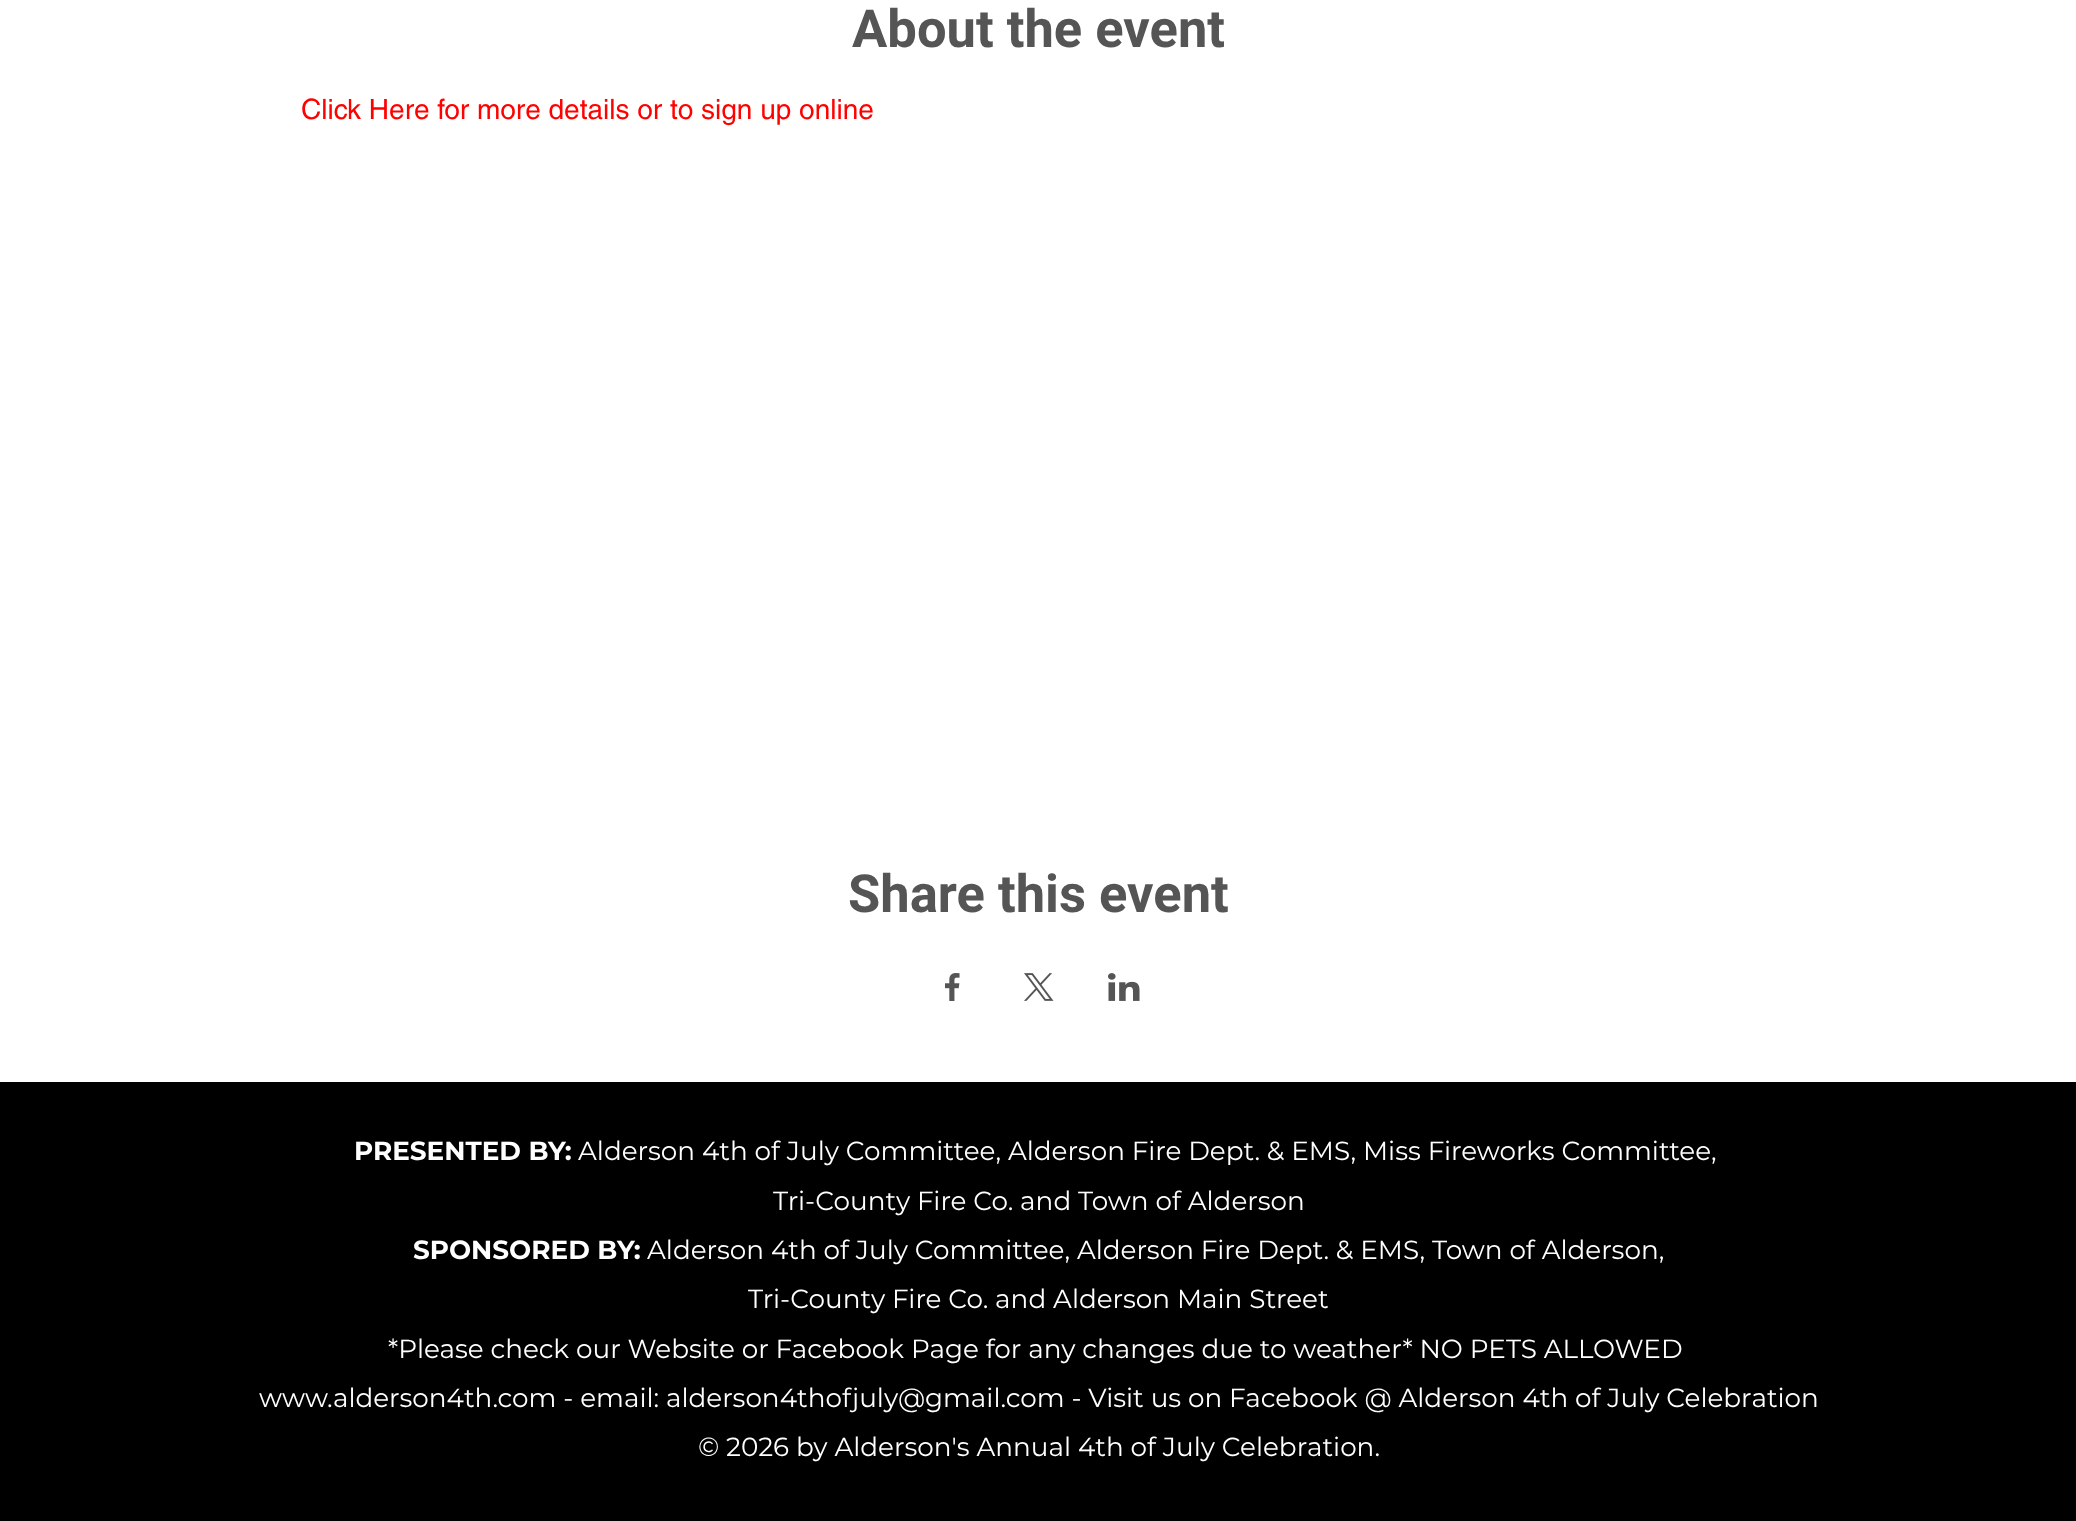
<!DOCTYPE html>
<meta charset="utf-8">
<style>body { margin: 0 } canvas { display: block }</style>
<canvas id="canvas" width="2076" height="1521"></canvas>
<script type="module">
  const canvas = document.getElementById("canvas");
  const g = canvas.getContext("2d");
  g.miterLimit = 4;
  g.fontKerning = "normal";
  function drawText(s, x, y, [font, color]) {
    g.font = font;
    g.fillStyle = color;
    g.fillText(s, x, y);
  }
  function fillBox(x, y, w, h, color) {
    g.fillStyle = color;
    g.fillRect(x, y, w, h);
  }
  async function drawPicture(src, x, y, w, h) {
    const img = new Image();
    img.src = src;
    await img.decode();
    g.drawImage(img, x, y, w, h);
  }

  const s1 = ["bold 52.5px Roboto", "#555555"];
  const s2 = ["28px helvetica", "#FF0200"];
  const s3 = ["bold 26.25px Montserrat", "#FFFFFF"];
  const s4 = ["26.25px Montserrat", "#FFFFFF"];

  fillBox(0, 0, 2076, 1521, "#FFFFFF");
  drawText("About the event", 852, 47, s1);
  drawText("Click Here for more details or to sign up online", 301, 119, s2);
  drawText("Share this event", 848, 912, s1);
  await drawPicture("pic1.png", 945, 973, 15, 28);
  await drawPicture("pic2.png", 1024, 973, 30, 28);
  await drawPicture("pic3.png", 1108, 973, 32, 28);
  fillBox(0, 1082, 2076, 439, "#000000");
  drawText("PRESENTED BY:", 354, 1160, s3);
  drawText("Alderson 4th of July Committee, Alderson Fire Dept. & EMS, Miss Fireworks Committee,", 578, 1160, s4);
  drawText("Tri-County Fire Co. and Town of Alderson", 773, 1210, s4);
  drawText("SPONSORED BY:", 413, 1259, s3);
  drawText("Alderson 4th of July Committee, Alderson Fire Dept. & EMS, Town of Alderson,", 647, 1259, s4);
  drawText("Tri-County Fire Co. and Alderson Main Street", 748, 1308, s4);
  drawText("*Please check our Website or Facebook Page for any changes due to weather* NO PETS ALLOWED", 388, 1358, s4);
  drawText("www.alderson4th.com - email: alderson4thofjuly@gmail.com - Visit us on Facebook @ Alderson 4th of July Celebration", 259, 1407, s4);
  drawText("© 2026 by Alderson's Annual 4th of July Celebration.", 698, 1456, s4);
</script>
